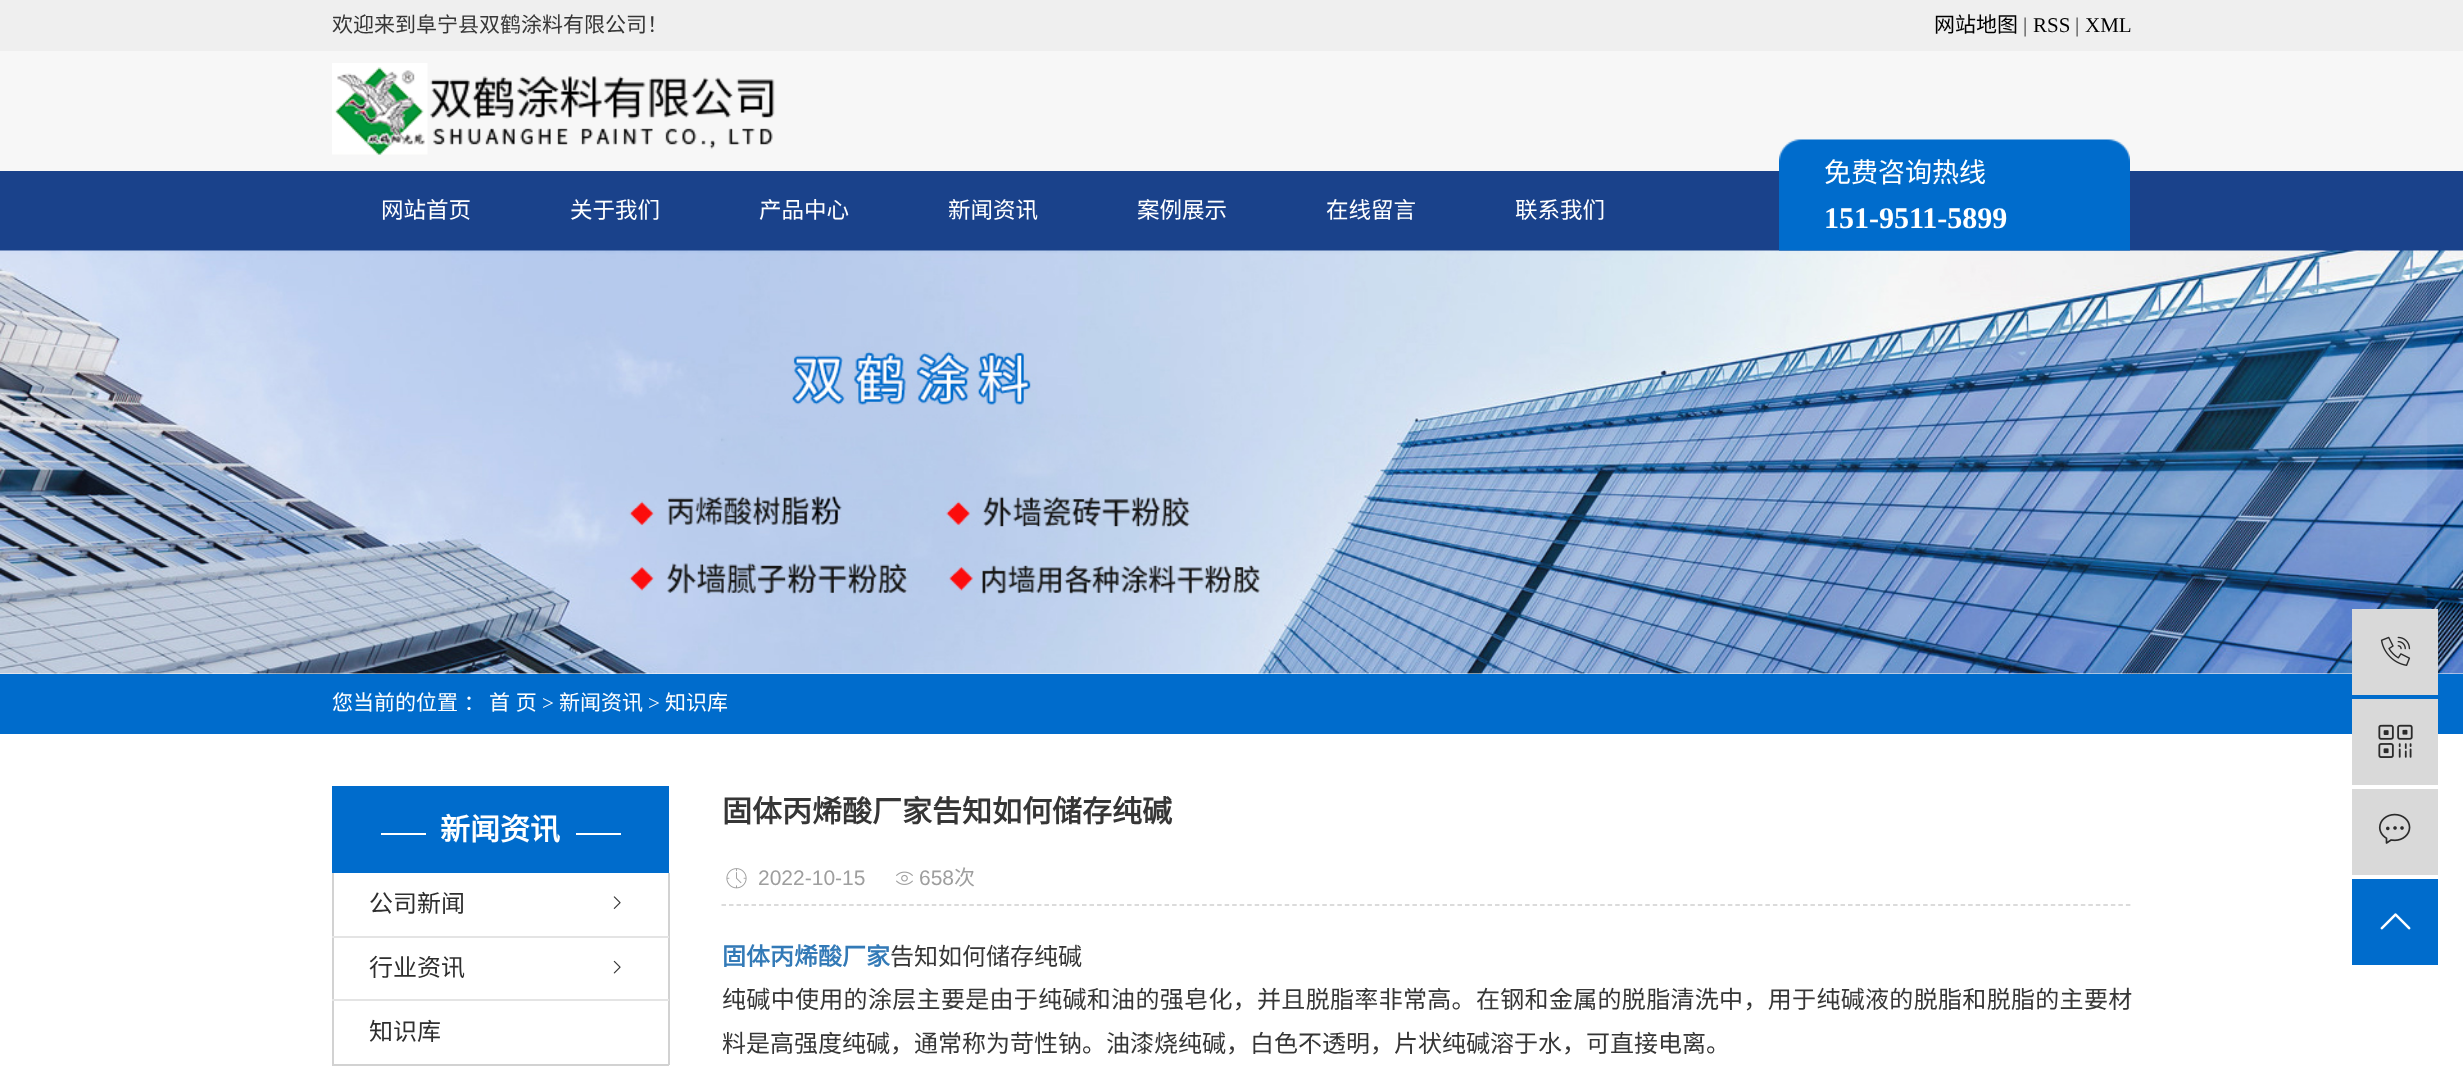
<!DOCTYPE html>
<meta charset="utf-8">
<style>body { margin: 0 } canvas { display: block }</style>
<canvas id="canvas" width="2463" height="1076"></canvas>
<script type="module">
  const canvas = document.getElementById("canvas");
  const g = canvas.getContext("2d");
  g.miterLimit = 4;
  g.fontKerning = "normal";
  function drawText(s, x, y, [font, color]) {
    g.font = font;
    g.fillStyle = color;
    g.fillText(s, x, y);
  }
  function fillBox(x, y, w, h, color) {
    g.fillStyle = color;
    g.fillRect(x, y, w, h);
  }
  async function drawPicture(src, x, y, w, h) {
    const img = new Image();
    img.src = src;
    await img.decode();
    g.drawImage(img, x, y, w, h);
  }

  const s1 = ["21px Noto Sans CJK SC", "#363636"];
  const s2 = ["21px Noto Sans CJK SC", "#000000"];
  const s3 = ["21px Liberation Serif", "#363636"];
  const s4 = ["21px Liberation Serif", "#000000"];
  const s5 = ["27px Noto Sans CJK SC", "#FFFFFF"];
  const s6 = ["bold 30px Liberation Serif", "#FFFFFF"];
  const s7 = ["22.5px Noto Sans CJK SC", "#FFFFFF"];
  const s8 = ["21px Noto Sans CJK SC", "#FFFFFF"];
  const s9 = ["21px Liberation Serif", "#FFFFFF"];
  const s10 = ["bold 30px Noto Sans CJK SC", "#FFFFFF"];
  const s11 = ["24px Noto Sans CJK SC", "#2E2E2E"];
  const s12 = ["bold 30px Noto Sans CJK SC", "#363636"];
  const s13 = ["21px Liberation Sans", "#9E9E9E"];
  const s14 = ["21px Noto Sans CJK SC", "#9E9E9E"];
  const s15 = ["bold 24px Noto Sans CJK SC", "#337AB7"];
  const s16 = ["24px Noto Sans CJK SC", "#363636"];

  fillBox(0, 0, 2463, 1076, "#FFFFFF");
  fillBox(0, 0, 2463, 51, "#EFEFEF");
  drawText("欢迎来到阜宁县双鹤涂料有限公司！", 332, 32, s1);
  drawText("网站地图", 1934, 32, s2);
  drawText("|", 2023, 32, s3);
  drawText("RSS", 2033, 32, s4);
  drawText("|", 2075, 32, s3);
  drawText("XML", 2085, 32, s4);
  fillBox(0, 51, 2463, 120, "#F7F7F7");
  await drawPicture("pic1.png", 332, 63, 443, 92);
  fillBox(0, 171, 2463, 80, "#1A428B");
  await drawPicture("pic3.png", 0, 250, 2463, 424);
  await drawPicture("pic2.png", 1779, 139, 351, 112);
  drawText("免费咨询热线", 1824, 182, s5);
  drawText("151-9511-5899", 1824, 228, s6);
  drawText("网站首页", 381, 218, s7);
  drawText("关于我们", 570, 218, s7);
  drawText("产品中心", 759, 218, s7);
  drawText("新闻资讯", 948, 218, s7);
  drawText("案例展示", 1137, 218, s7);
  drawText("在线留言", 1326, 218, s7);
  drawText("联系我们", 1515, 218, s7);
  fillBox(0, 674, 2463, 60, "#006CCC");
  g.wordSpacing = "1px";
  drawText("您当前的位置 ：", 332, 710, s8);
  drawText("首 页", 489, 710, s8);
  g.wordSpacing = "0px";
  drawText(">", 542, 710, s9);
  drawText("新闻资讯", 559, 710, s8);
  drawText(">", 648, 710, s9);
  drawText("知识库", 665, 710, s8);
  fillBox(2352, 609, 86, 86, "#D9D9D9");
  await drawPicture("pic4.png", 2380, 636, 31, 30);
  fillBox(2352, 699, 86, 86, "#D9D9D9");
  await drawPicture("pic5.png", 2378, 724, 35, 34);
  fillBox(2352, 789, 86, 86, "#D9D9D9");
  await drawPicture("pic6.png", 2378, 813, 33, 31);
  fillBox(2352, 879, 86, 86, "#006CCC");
  await drawPicture("pic7.png", 2380, 913, 31, 17);
  fillBox(332, 786, 337, 87, "#006CCC");
  fillBox(381, 833, 45, 2, "#FFFFFF");
  drawText("新闻资讯", 440, 840, s10);
  fillBox(576, 833, 45, 2, "#FFFFFF");
  fillBox(668, 873, 2, 192, "#D2D2D2");
  fillBox(332, 1064, 337, 2, "#D2D2D2");
  fillBox(332, 873, 2, 192, "#D2D2D2");
  drawText("公司新闻", 369, 912, s11);
  await drawPicture("pic8.png", 613, 896, 8, 13);
  fillBox(332, 936, 337, 2, "#E4E4E4");
  drawText("行业资讯", 369, 976, s11);
  await drawPicture("pic9.png", 613, 960, 8, 14);
  fillBox(332, 999, 337, 2, "#E4E4E4");
  drawText("知识库", 369, 1040, s11);
  drawText("固体丙烯酸厂家告知如何储存纯碱", 722, 822, s12);
  g.beginPath();
  g.moveTo(721.5, 905);
  g.lineTo(2131.5, 905);
  g.strokeStyle = "#CFCFCF";
  g.lineWidth = 1.5;
  g.setLineDash([4.5, 3.01]);
  g.stroke();
  await drawPicture("pic10.png", 726, 868, 21, 21);
  drawText("2022-10-15", 758, 885, s13);
  await drawPicture("pic11.png", 896, 871, 17, 14);
  drawText("658", 919, 885, s13);
  drawText("次", 954, 885, s14);
  drawText("固体丙烯酸厂家", 722, 965, s15);
  drawText("告知如何储存纯碱", 890, 965, s16);
  g.letterSpacing = "0.32px";
  drawText("纯碱中使用的涂层主要是由于纯碱和油的强皂化，并且脱脂率非常高。在钢和金属的脱脂清洗中，用于纯碱液的脱脂和脱脂的主要材", 722, 1008, s16);
  g.letterSpacing = "0px";
  drawText("料是高强度纯碱，通常称为苛性钠。油漆烧纯碱，白色不透明，片状纯碱溶于水，可直接电离。", 722, 1052, s16);
</script>
